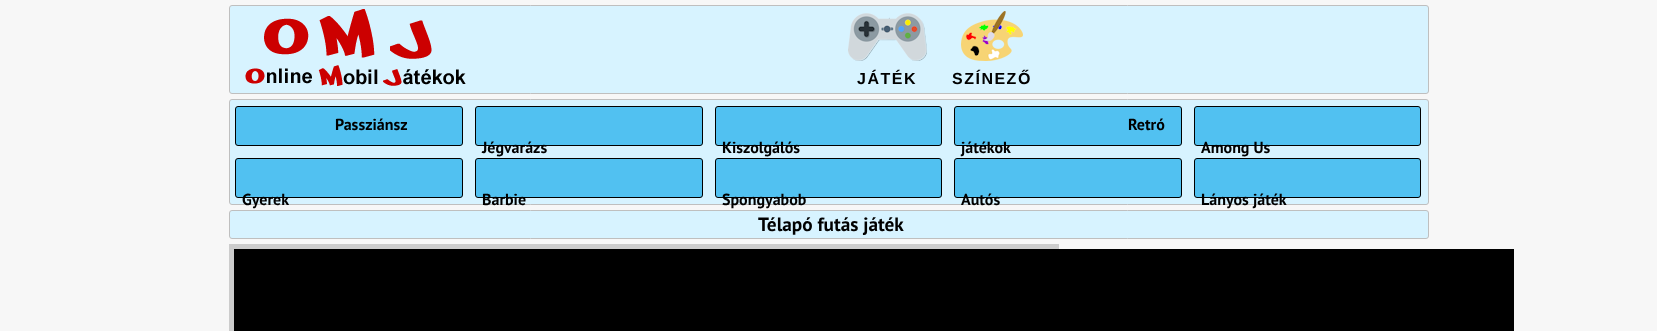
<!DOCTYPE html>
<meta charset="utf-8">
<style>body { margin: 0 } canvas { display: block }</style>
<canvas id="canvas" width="1657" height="331"></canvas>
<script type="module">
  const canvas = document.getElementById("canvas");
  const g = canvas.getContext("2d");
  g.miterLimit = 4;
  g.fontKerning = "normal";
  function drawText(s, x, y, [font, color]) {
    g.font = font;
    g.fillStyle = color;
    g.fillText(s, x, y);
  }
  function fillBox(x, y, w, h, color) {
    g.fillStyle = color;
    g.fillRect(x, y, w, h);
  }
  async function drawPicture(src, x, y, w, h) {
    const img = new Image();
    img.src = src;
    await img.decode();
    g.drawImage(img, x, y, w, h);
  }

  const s1 = ["bold 16px Liberation Sans", "#000000"];
  const s2 = ["bold 16px PT Sans", "#000000"];
  const s3 = ["bold 19.25px PT Sans", "#000000"];

  fillBox(0, 0, 1657, 331, "#F7F7F7");
  g.fillStyle = "#D7F3FF";
  g.beginPath();
  g.roundRect(229.5, 5.5, 1199, 88, 2.5);
  g.fill();
  g.strokeStyle = "#BFBFBF";
  g.stroke();
  await drawPicture("pic1.png", 245, 9, 221, 77);
  await drawPicture("pic2.png", 848, 13, 79, 48);
  g.letterSpacing = "1.5px";
  drawText("JÁTÉK", 857, 84, s1);
  await drawPicture("pic3.png", 961, 11, 62, 50);
  drawText("SZÍNEZŐ", 952, 84, s1);
  g.fillStyle = "#D7F3FF";
  g.beginPath();
  g.roundRect(229.5, 99.5, 1199, 105, 2.5);
  g.fill();
  g.stroke();
  g.fillStyle = "#51C1F1";
  g.beginPath();
  g.roundRect(235.5, 106.5, 227, 39, 2.5);
  g.fill();
  g.strokeStyle = "#000000";
  g.stroke();
  g.letterSpacing = "0px";
  drawText("Passziánsz", 335, 130, s2);
  g.fillStyle = "#51C1F1";
  g.beginPath();
  g.roundRect(475.5, 106.5, 227, 39, 2.5);
  g.fill();
  g.stroke();
  drawText("Jégvarázs", 482, 153, s2);
  g.fillStyle = "#51C1F1";
  g.beginPath();
  g.roundRect(715.5, 106.5, 226, 39, 2.5);
  g.fill();
  g.stroke();
  drawText("Kiszolgálós", 722, 153, s2);
  g.fillStyle = "#51C1F1";
  g.beginPath();
  g.roundRect(954.5, 106.5, 227, 39, 2.5);
  g.fill();
  g.stroke();
  drawText("Retró", 1128, 130, s2);
  drawText("játékok", 961, 153, s2);
  g.fillStyle = "#51C1F1";
  g.beginPath();
  g.roundRect(1194.5, 106.5, 226, 39, 2.5);
  g.fill();
  g.stroke();
  drawText("Among Us", 1201, 153, s2);
  g.fillStyle = "#51C1F1";
  g.beginPath();
  g.roundRect(235.5, 158.5, 227, 39, 2.5);
  g.fill();
  g.stroke();
  drawText("Gyerek", 242, 205, s2);
  g.fillStyle = "#51C1F1";
  g.beginPath();
  g.roundRect(475.5, 158.5, 227, 39, 2.5);
  g.fill();
  g.stroke();
  drawText("Barbie", 482, 205, s2);
  g.fillStyle = "#51C1F1";
  g.beginPath();
  g.roundRect(715.5, 158.5, 226, 39, 2.5);
  g.fill();
  g.stroke();
  drawText("Spongyabob", 722, 205, s2);
  g.fillStyle = "#51C1F1";
  g.beginPath();
  g.roundRect(954.5, 158.5, 227, 39, 2.5);
  g.fill();
  g.stroke();
  drawText("Autós", 961, 205, s2);
  g.fillStyle = "#51C1F1";
  g.beginPath();
  g.roundRect(1194.5, 158.5, 226, 39, 2.5);
  g.fill();
  g.stroke();
  drawText("Lányos játék", 1201, 205, s2);
  g.fillStyle = "#D7F3FF";
  g.beginPath();
  g.roundRect(229.5, 210.5, 1199, 28, 2.5);
  g.fill();
  g.strokeStyle = "#BFBFBF";
  g.stroke();
  drawText("Télapó futás játék", 758, 231, s3);
  g.strokeStyle = "#CCCCCC";
  g.lineWidth = 5;
  g.strokeRect(231.5, 246.5, 825, 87);
  fillBox(234, 249, 1280, 82, "#000000");
</script>
